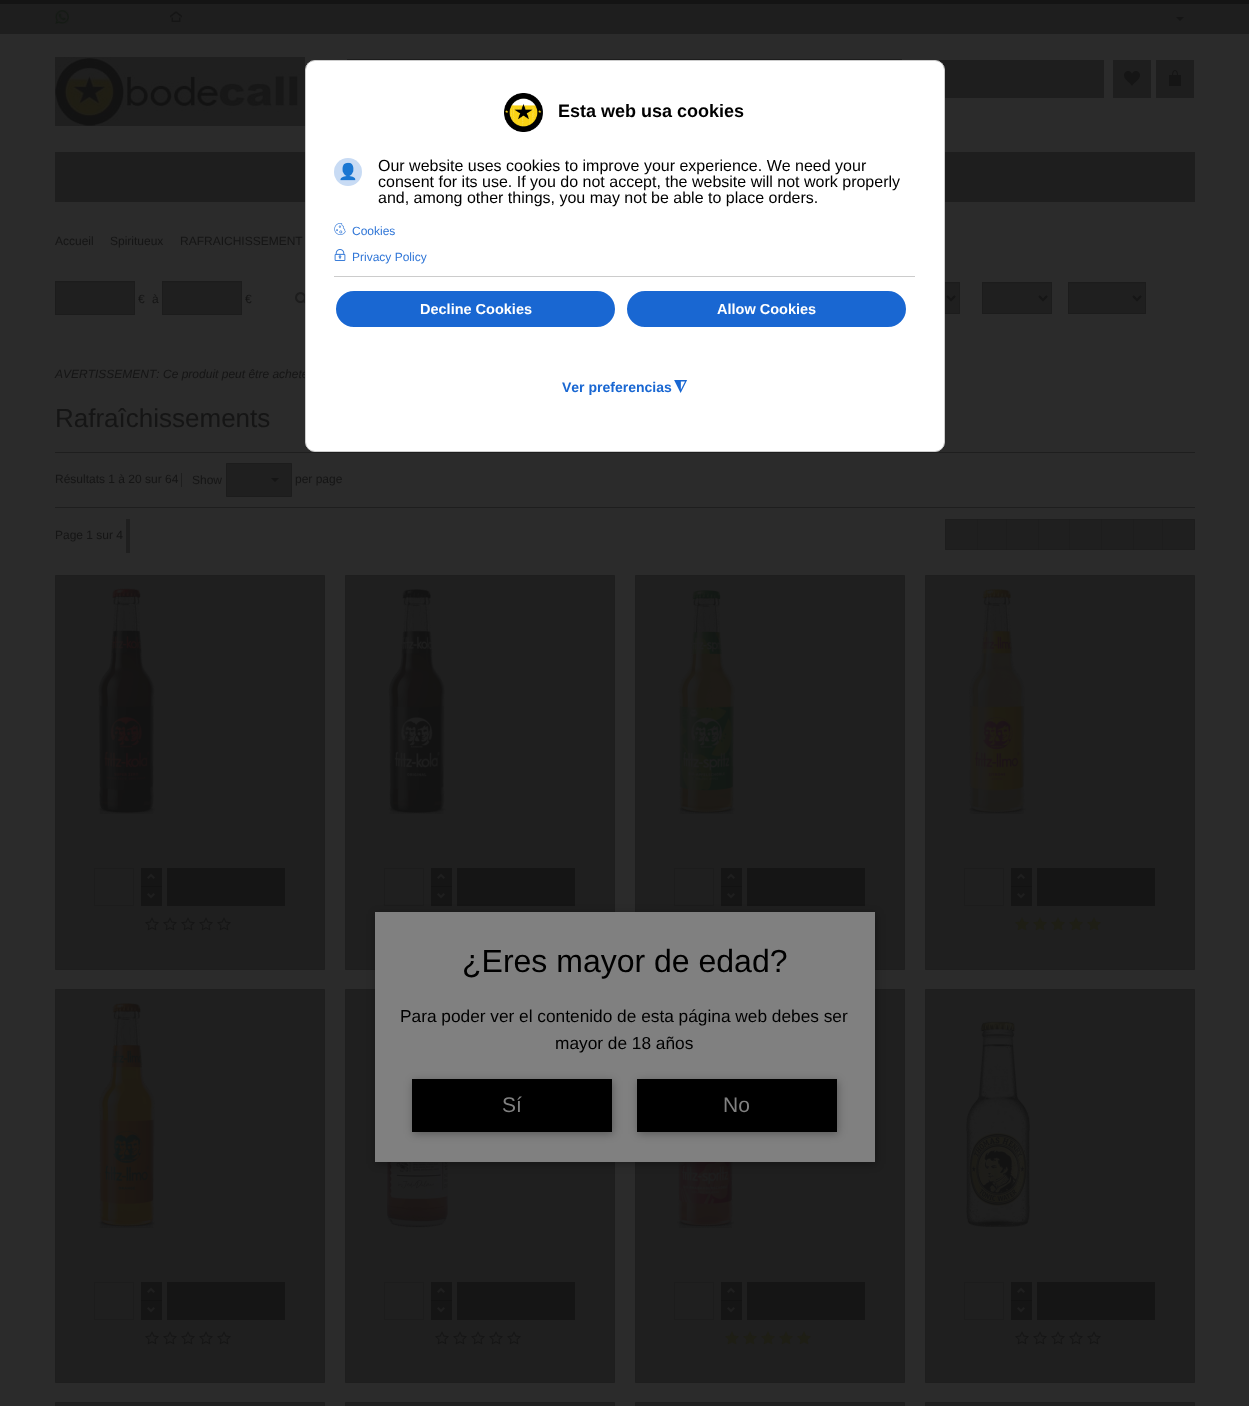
<!DOCTYPE html>
<meta charset="utf-8">
<style>body { margin: 0 } canvas { display: block }</style>
<canvas id="canvas" width="1249" height="1406"></canvas>
<script type="module">
  const canvas = document.getElementById("canvas");
  const g = canvas.getContext("2d");
  g.miterLimit = 4;
  g.fontKerning = "none";
  function drawText(s, x, y, [font, color]) {
    g.font = font;
    g.fillStyle = color;
    g.fillText(s, x, y);
  }
  function fillBox(x, y, w, h, color) {
    g.fillStyle = color;
    g.fillRect(x, y, w, h);
  }
  async function drawPicture(src, x, y, w, h) {
    const img = new Image();
    img.src = src;
    await img.decode();
    g.drawImage(img, x, y, w, h);
  }

  const s1 = ["italic 12px Liberation Sans", "#151515"];
  const s2 = ["bold 18px Liberation Sans", "#000000"];
  const s3 = ["16px Noto Color Emoji", "#000000"];
  const s4 = ["16px Liberation Sans", "#000000"];
  const s5 = ["12px Liberation Sans", "#3076D7"];
  const s6 = ["bold 14.5px Liberation Sans", "#FFFFFF"];
  const s7 = ["bold 14px Liberation Sans", "#1967D2"];
  const s8 = ["12px Liberation Sans", "#151515"];
  const s9 = ["26px Liberation Sans", "#151515"];
  const s10 = ["32px Liberation Sans", "#000000"];
  const s11 = ["17.3px Liberation Sans", "#000000"];
  const s12 = ["21px Liberation Sans", "#808080"];

  fillBox(0, 0, 1249, 1406, "#2B2B2B");
  g.strokeStyle = "#1C1C1C";
  g.strokeRect(347.5, 59.5, 554, 33);
  fillBox(935, 60, 169, 38, "#1E1E1E");
  fillBox(55, 152, 1140, 50, "#1E1E1E");
  fillBox(945, 284, 14, 29, "#1F1F1F");
  fillBox(945, 283, 14, 1, "#1E1E1E");
  g.strokeRect(858.5, 282.5, 101, 31);
  drawText("AVERTISSEMENT: Ce produit peut être acheté", 55, 378, s1);
  g.fillStyle = "#FFFFFF";
  g.beginPath();
  g.roundRect(305.5, 60.5, 639, 391, 9.5);
  g.fill();
  g.strokeStyle = "#CCCCCC";
  g.stroke();
  await drawPicture("pic1.png", 504, 93, 39, 39);
  drawText("Esta web usa cookies", 558, 117, s2);
  g.fillStyle = "#C8DBF4";
  g.beginPath();
  g.arc(348, 172, 14, 0, Math.PI * 2);
  g.fill();
  drawText("👤", 338, 177, s3);
  drawText("Our website uses cookies to improve your experience. We need your", 378, 171, s4);
  drawText("consent for its use. If you do not accept, the website will not work properly", 378, 187, s4);
  drawText("and, among other things, you may not be able to place orders.", 378, 203, s4);
  await drawPicture("pic2.png", 334, 223, 12, 12);
  drawText("Cookies", 352, 235, s5);
  await drawPicture("pic3.png", 334, 249, 12, 12);
  drawText("Privacy Policy", 352, 261, s5);
  fillBox(334, 276, 581, 1, "#CCCCCC");
  g.fillStyle = "#1967D2";
  g.beginPath();
  g.roundRect(335, 290, 281, 38, 19);
  g.fill();
  g.strokeStyle = "#FFFFFF";
  g.lineWidth = 2;
  g.stroke();
  drawText("Decline Cookies", 420, 314, s6);
  g.fillStyle = "#1967D2";
  g.beginPath();
  g.roundRect(626, 290, 281, 38, 19);
  g.fill();
  g.stroke();
  drawText("Allow Cookies", 717, 314, s6);
  drawText("Ver preferencias", 562, 392, s7);
  g.font = "bold 16px DejaVu Sans";
  g.save();
  g.translate(687, 382);
  g.rotate(180 * Math.PI / 180);
  g.fillText("◮", 0, 0);
  g.restore();
  fillBox(0, 4, 1249, 30, "#1E1E1E");
  fillBox(0, 0, 1249, 4, "#141414");
  await drawPicture("pic4.png", 55, 10, 14, 14);
  await drawPicture("pic5.png", 170, 11, 12, 11);
  g.fillStyle = "#151515";
  g.beginPath();
  g.moveTo(1176, 17);
  g.lineTo(1184, 17);
  g.lineTo(1180, 21);
  g.closePath();
  g.fill();
  await drawPicture("pic6.png", 55, 57, 250, 69);
  fillBox(1113, 60, 38, 38, "#1E1E1E");
  await drawPicture("pic7.png", 1124, 71, 16, 15);
  fillBox(1156, 60, 38, 38, "#1E1E1E");
  await drawPicture("pic8.png", 1169, 70, 12, 16);
  drawText("Accueil", 55, 245, s8);
  drawText("Spiritueux", 110, 245, s8);
  drawText("RAFRAICHISSEMENT", 180, 245, s8);
  fillBox(56, 283, 78, 31, "#1F1F1F");
  fillBox(56, 282, 78, 1, "#1E1E1E");
  g.strokeStyle = "#1C1C1C";
  g.lineWidth = 1;
  g.strokeRect(55.5, 281.5, 79, 33);
  drawText("€", 138, 303, s8);
  drawText("à", 152, 303, s8);
  fillBox(163, 283, 78, 31, "#1F1F1F");
  fillBox(163, 282, 78, 1, "#1E1E1E");
  g.strokeRect(162.5, 281.5, 79, 33);
  drawText("€", 245, 303, s8);
  await drawPicture("pic9.png", 295, 292, 10, 12);
  g.beginPath();
  g.moveTo(947, 296);
  g.lineTo(951, 300);
  g.lineTo(955, 296);
  g.strokeStyle = "#161616";
  g.lineWidth = 2;
  g.stroke();
  fillBox(983, 284, 68, 29, "#1F1F1F");
  fillBox(983, 283, 68, 1, "#1E1E1E");
  g.strokeStyle = "#1C1C1C";
  g.lineWidth = 1;
  g.strokeRect(982.5, 282.5, 69, 31);
  g.beginPath();
  g.moveTo(1039, 296);
  g.lineTo(1043, 300);
  g.lineTo(1047, 296);
  g.strokeStyle = "#161616";
  g.lineWidth = 2;
  g.stroke();
  fillBox(1069, 284, 76, 29, "#1F1F1F");
  fillBox(1069, 283, 76, 1, "#1E1E1E");
  g.strokeStyle = "#1C1C1C";
  g.lineWidth = 1;
  g.strokeRect(1068.5, 282.5, 77, 31);
  g.beginPath();
  g.moveTo(1133, 296);
  g.lineTo(1137, 300);
  g.lineTo(1141, 296);
  g.strokeStyle = "#161616";
  g.lineWidth = 2;
  g.stroke();
  drawText("Rafraîchissements", 55, 427, s9);
  fillBox(55, 452, 1140, 1, "#1E1E1E");
  fillBox(55, 507, 1140, 1, "#1E1E1E");
  drawText("Résultats 1 à 20 sur 64", 55, 483, s8);
  fillBox(181, 473, 1, 14, "#1E1E1E");
  drawText("Show", 192, 484, s8);
  g.fillStyle = "#1F1F1F";
  g.beginPath();
  g.rect(226.5, 463.5, 65, 33);
  g.fill();
  g.strokeStyle = "#1C1C1C";
  g.lineWidth = 1;
  g.stroke();
  g.fillStyle = "#151515";
  g.beginPath();
  g.moveTo(271, 478);
  g.lineTo(279, 478);
  g.lineTo(275, 482);
  g.closePath();
  g.fill();
  drawText("per page", 295, 483, s8);
  drawText("Page 1 sur 4", 55, 539, s8);
  fillBox(126, 519, 4, 34, "#1F1F1F");
  g.beginPath();
  g.rect(945.5, 519.5, 32, 30);
  g.fill();
  g.strokeStyle = "#1D1D1D";
  g.stroke();
  g.beginPath();
  g.rect(977.5, 519.5, 29, 30);
  g.fill();
  g.stroke();
  g.beginPath();
  g.rect(1006.5, 519.5, 32, 30);
  g.fill();
  g.stroke();
  g.beginPath();
  g.rect(1038.5, 519.5, 31, 30);
  g.fill();
  g.stroke();
  g.beginPath();
  g.rect(1069.5, 519.5, 32, 30);
  g.fill();
  g.stroke();
  g.beginPath();
  g.rect(1101.5, 519.5, 32, 30);
  g.fill();
  g.stroke();
  g.beginPath();
  g.rect(1133.5, 519.5, 29, 30);
  g.fill();
  g.stroke();
  g.beginPath();
  g.rect(1162.5, 519.5, 32, 30);
  g.fill();
  g.stroke();
  g.beginPath();
  g.rect(55.5, 575.5, 269, 394);
  g.fill();
  g.strokeStyle = "#1E1E1E";
  g.stroke();
  await drawPicture("pic10.png", 98, 588, 57, 226);
  g.strokeStyle = "#1C1C1C";
  g.strokeRect(94.5, 868.5, 39, 37);
  fillBox(141, 868, 21, 18, "#151515");
  fillBox(141, 886, 21, 1, "#121212");
  await drawPicture("pic11.png", 147, 873, 8, 6);
  fillBox(141, 887, 21, 19, "#151515");
  await drawPicture("pic12.png", 147, 893, 8, 6);
  fillBox(167, 868, 118, 38, "#151515");
  await drawPicture("pic13.png", 145, 917, 14, 14);
  await drawPicture("pic13.png", 163, 917, 14, 14);
  await drawPicture("pic13.png", 181, 917, 14, 14);
  await drawPicture("pic13.png", 199, 917, 14, 14);
  await drawPicture("pic13.png", 217, 917, 14, 14);
  g.fillStyle = "#1F1F1F";
  g.beginPath();
  g.rect(345.5, 575.5, 269, 394);
  g.fill();
  g.strokeStyle = "#1E1E1E";
  g.stroke();
  await drawPicture("pic14.png", 388, 589, 58, 225);
  g.strokeStyle = "#1C1C1C";
  g.strokeRect(384.5, 868.5, 39, 37);
  fillBox(431, 868, 21, 18, "#151515");
  fillBox(431, 886, 21, 1, "#121212");
  await drawPicture("pic11.png", 437, 873, 8, 6);
  fillBox(431, 887, 21, 19, "#151515");
  await drawPicture("pic12.png", 437, 893, 8, 6);
  fillBox(457, 868, 118, 38, "#151515");
  g.fillStyle = "#1F1F1F";
  g.beginPath();
  g.rect(635.5, 575.5, 269, 394);
  g.fill();
  g.strokeStyle = "#1E1E1E";
  g.stroke();
  await drawPicture("pic15.png", 678, 590, 57, 224);
  g.strokeStyle = "#1C1C1C";
  g.strokeRect(674.5, 868.5, 39, 37);
  fillBox(721, 868, 21, 18, "#151515");
  fillBox(721, 886, 21, 1, "#121212");
  await drawPicture("pic11.png", 727, 873, 8, 6);
  fillBox(721, 887, 21, 19, "#151515");
  await drawPicture("pic12.png", 727, 893, 8, 6);
  fillBox(747, 868, 118, 38, "#151515");
  g.fillStyle = "#1F1F1F";
  g.beginPath();
  g.rect(925.5, 575.5, 269, 394);
  g.fill();
  g.strokeStyle = "#1E1E1E";
  g.stroke();
  await drawPicture("pic16.png", 969, 589, 57, 225);
  g.strokeStyle = "#1C1C1C";
  g.strokeRect(964.5, 868.5, 39, 37);
  fillBox(1011, 868, 21, 18, "#151515");
  fillBox(1011, 886, 21, 1, "#121212");
  await drawPicture("pic11.png", 1017, 873, 8, 6);
  fillBox(1011, 887, 21, 19, "#151515");
  await drawPicture("pic12.png", 1017, 893, 8, 6);
  fillBox(1037, 868, 118, 38, "#151515");
  await drawPicture("pic17.png", 1015, 917, 14, 14);
  await drawPicture("pic17.png", 1033, 917, 14, 14);
  await drawPicture("pic17.png", 1051, 917, 14, 14);
  await drawPicture("pic17.png", 1069, 917, 14, 14);
  await drawPicture("pic17.png", 1087, 917, 14, 14);
  g.fillStyle = "#1F1F1F";
  g.beginPath();
  g.rect(55.5, 989.5, 269, 393);
  g.fill();
  g.strokeStyle = "#1E1E1E";
  g.stroke();
  await drawPicture("pic18.png", 98, 1003, 57, 225);
  g.strokeStyle = "#1C1C1C";
  g.strokeRect(94.5, 1282.5, 39, 37);
  fillBox(141, 1282, 21, 18, "#151515");
  fillBox(141, 1300, 21, 1, "#121212");
  await drawPicture("pic11.png", 147, 1287, 8, 6);
  fillBox(141, 1301, 21, 19, "#151515");
  await drawPicture("pic12.png", 147, 1307, 8, 6);
  fillBox(167, 1282, 118, 38, "#151515");
  await drawPicture("pic13.png", 145, 1331, 14, 14);
  await drawPicture("pic13.png", 163, 1331, 14, 14);
  await drawPicture("pic13.png", 181, 1331, 14, 14);
  await drawPicture("pic13.png", 199, 1331, 14, 14);
  await drawPicture("pic13.png", 217, 1331, 14, 14);
  g.fillStyle = "#1F1F1F";
  g.beginPath();
  g.rect(345.5, 989.5, 269, 393);
  g.fill();
  g.strokeStyle = "#1E1E1E";
  g.stroke();
  await drawPicture("pic19.png", 387, 1162, 61, 66);
  g.strokeStyle = "#1C1C1C";
  g.strokeRect(384.5, 1282.5, 39, 37);
  fillBox(431, 1282, 21, 18, "#151515");
  fillBox(431, 1300, 21, 1, "#121212");
  await drawPicture("pic11.png", 437, 1287, 8, 6);
  fillBox(431, 1301, 21, 19, "#151515");
  await drawPicture("pic12.png", 437, 1307, 8, 6);
  fillBox(457, 1282, 118, 38, "#151515");
  await drawPicture("pic13.png", 435, 1331, 14, 14);
  await drawPicture("pic13.png", 453, 1331, 14, 14);
  await drawPicture("pic13.png", 471, 1331, 14, 14);
  await drawPicture("pic13.png", 489, 1331, 14, 14);
  await drawPicture("pic13.png", 507, 1331, 14, 14);
  g.fillStyle = "#1F1F1F";
  g.beginPath();
  g.rect(635.5, 989.5, 269, 393);
  g.fill();
  g.strokeStyle = "#1E1E1E";
  g.stroke();
  await drawPicture("pic20.png", 677, 1162, 57, 66);
  g.strokeStyle = "#1C1C1C";
  g.strokeRect(674.5, 1282.5, 39, 37);
  fillBox(721, 1282, 21, 18, "#151515");
  fillBox(721, 1300, 21, 1, "#121212");
  await drawPicture("pic11.png", 727, 1287, 8, 6);
  fillBox(721, 1301, 21, 19, "#151515");
  await drawPicture("pic12.png", 727, 1307, 8, 6);
  fillBox(747, 1282, 118, 38, "#151515");
  await drawPicture("pic17.png", 725, 1331, 14, 14);
  await drawPicture("pic17.png", 743, 1331, 14, 14);
  await drawPicture("pic17.png", 761, 1331, 14, 14);
  await drawPicture("pic17.png", 779, 1331, 14, 14);
  await drawPicture("pic17.png", 797, 1331, 14, 14);
  g.fillStyle = "#1F1F1F";
  g.beginPath();
  g.rect(925.5, 989.5, 269, 393);
  g.fill();
  g.strokeStyle = "#1E1E1E";
  g.stroke();
  await drawPicture("pic21.png", 966, 1021, 64, 206);
  g.strokeStyle = "#1C1C1C";
  g.strokeRect(964.5, 1282.5, 39, 37);
  fillBox(1011, 1282, 21, 18, "#151515");
  fillBox(1011, 1300, 21, 1, "#121212");
  await drawPicture("pic11.png", 1017, 1287, 8, 6);
  fillBox(1011, 1301, 21, 19, "#151515");
  await drawPicture("pic12.png", 1017, 1307, 8, 6);
  fillBox(1037, 1282, 118, 38, "#151515");
  await drawPicture("pic13.png", 1015, 1331, 14, 14);
  await drawPicture("pic13.png", 1033, 1331, 14, 14);
  await drawPicture("pic13.png", 1051, 1331, 14, 14);
  await drawPicture("pic13.png", 1069, 1331, 14, 14);
  await drawPicture("pic13.png", 1087, 1331, 14, 14);
  g.fillStyle = "#1F1F1F";
  g.beginPath();
  g.rect(55.5, 1402.5, 269, 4);
  g.fill();
  g.strokeStyle = "#1E1E1E";
  g.stroke();
  g.beginPath();
  g.rect(345.5, 1402.5, 269, 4);
  g.fill();
  g.stroke();
  g.beginPath();
  g.rect(635.5, 1402.5, 269, 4);
  g.fill();
  g.stroke();
  g.beginPath();
  g.rect(925.5, 1402.5, 269, 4);
  g.fill();
  g.stroke();
  g.fillStyle = "rgba(0, 0, 0, 0.3)";
  g.filter = "blur(4.5px)";
  g.beginPath();
  g.rect(376, 914, 500, 250);
  g.fill();
  g.filter = "none";
  fillBox(375, 912, 500, 250, "#808080");
  drawText("¿Eres mayor de edad?", 462, 972, s10);
  drawText("Para poder ver el contenido de esta página web debes ser", 400, 1022, s11);
  drawText("mayor de 18 años", 555, 1049, s11);
  g.fillStyle = "rgba(0, 0, 0, 0.3)";
  g.filter = "blur(4.5px)";
  g.beginPath();
  g.rect(413, 1081, 200, 53);
  g.fill();
  g.filter = "none";
  fillBox(412, 1079, 200, 53, "#000000");
  drawText("Sí", 502, 1112, s12);
  g.fillStyle = "rgba(0, 0, 0, 0.3)";
  g.filter = "blur(4.5px)";
  g.beginPath();
  g.rect(638, 1081, 200, 53);
  g.fill();
  g.filter = "none";
  fillBox(637, 1079, 200, 53, "#000000");
  drawText("No", 723, 1112, s12);
</script>
